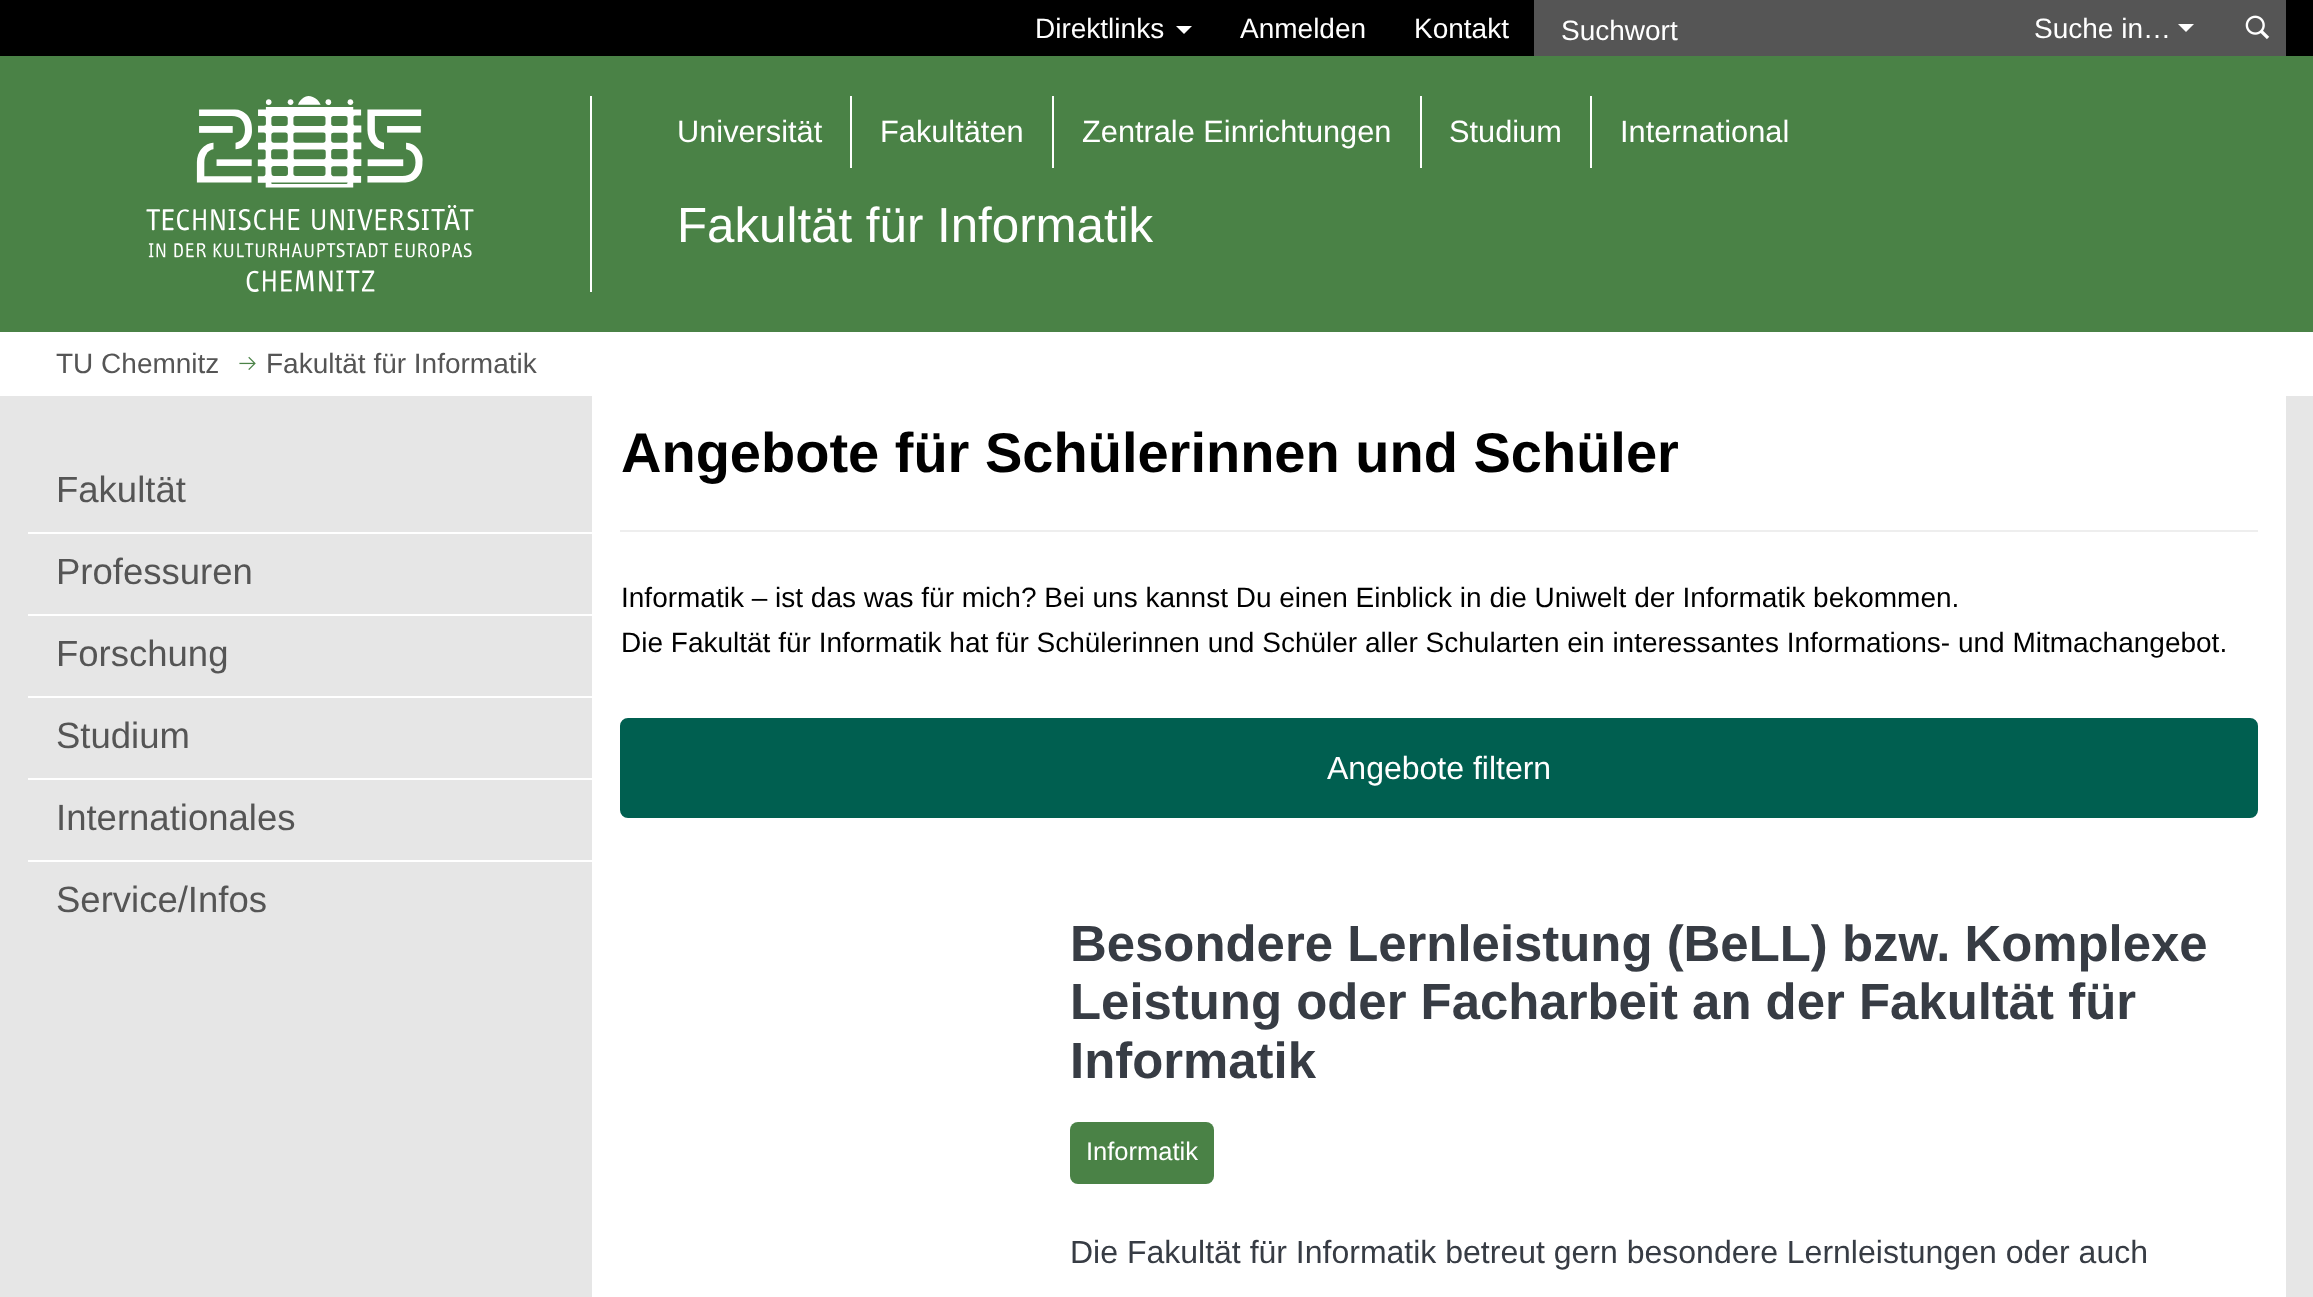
<!DOCTYPE html>
<meta charset="utf-8">
<style>body { margin: 0 } canvas { display: block }</style>
<canvas id="canvas" width="2313" height="1297"></canvas>
<script type="module">
  const canvas = document.getElementById("canvas");
  const g = canvas.getContext("2d");
  g.miterLimit = 4;
  g.fontKerning = "normal";
  function drawText(s, x, y, [font, color]) {
    g.font = font;
    g.fillStyle = color;
    g.fillText(s, x, y);
  }
  function fillBox(x, y, w, h, color) {
    g.fillStyle = color;
    g.fillRect(x, y, w, h);
  }
  function fillRounded(x, y, w, h, r, color) {
    g.fillStyle = color;
    g.beginPath();
    g.roundRect(x, y, w, h, r);
    g.fill();
  }
  async function drawPicture(src, x, y, w, h) {
    const img = new Image();
    img.src = src;
    await img.decode();
    g.drawImage(img, x, y, w, h);
  }

  const s1 = ["28px Liberation Sans", "#FFFFFF"];
  const s2 = ["30.75px Liberation Sans", "#FFFFFF"];
  const s3 = ["49.25px Liberation Sans", "#FFFFFF"];
  const s4 = ["28px Liberation Sans", "#555555"];
  const s5 = ["36.5px Liberation Sans", "#555555"];
  const s6 = ["bold 56px Liberation Sans", "#000000"];
  const s7 = ["28px Liberation Sans", "#000000"];
  const s8 = ["32px Liberation Sans", "#FFFFFF"];
  const s9 = ["bold 50.9px Liberation Sans", "#373C44"];
  const s10 = ["25.5px Liberation Sans", "#FFFFFF"];
  const s11 = ["32px Liberation Sans", "#373C44"];

  fillBox(0, 0, 2313, 1297, "#E6E6E6");
  fillBox(0, 0, 2313, 56, "#000000");
  drawText("Direktlinks", 1035, 38, s1);
  g.beginPath();
  g.moveTo(1176, 26);
  g.lineTo(1192, 26);
  g.lineTo(1184, 34);
  g.closePath();
  g.fill();
  drawText("Anmelden", 1240, 38, s1);
  drawText("Kontakt", 1414, 38, s1);
  fillBox(1534, 0, 752, 56, "#555555");
  drawText("Suchwort", 1561, 40, s1);
  drawText("Suche in…", 2034, 38, s1);
  g.beginPath();
  g.moveTo(2178, 24);
  g.lineTo(2194, 24);
  g.lineTo(2186, 32);
  g.closePath();
  g.fill();
  await drawPicture("pic1.png", 2245, 15, 25, 25);
  fillBox(0, 56, 2313, 276, "#4A8246");
  fillBox(590, 96, 2, 196, "#FFFFFF");
  await drawPicture("pic2.png", 146, 96, 328, 196);
  drawText("Universität", 677, 142, s2);
  fillBox(850, 96, 2, 72, "#FFFFFF");
  drawText("Fakultäten", 880, 142, s2);
  fillBox(1052, 96, 2, 72, "#FFFFFF");
  drawText("Zentrale Einrichtungen", 1082, 142, s2);
  fillBox(1420, 96, 2, 72, "#FFFFFF");
  drawText("Studium", 1449, 142, s2);
  fillBox(1590, 96, 2, 72, "#FFFFFF");
  drawText("International", 1620, 142, s2);
  drawText("Fakultät für Informatik", 677, 242, s3);
  fillBox(0, 332, 2313, 64, "#FFFFFF");
  drawText("TU Chemnitz", 56, 373, s4);
  await drawPicture("pic3.png", 239, 356, 17, 14);
  drawText("Fakultät für Informatik", 266, 373, s4);
  drawText("Fakultät", 56, 502, s5);
  fillBox(28, 532, 564, 2, "#FFFFFF");
  drawText("Professuren", 56, 584, s5);
  fillBox(28, 614, 564, 2, "#FFFFFF");
  drawText("Forschung", 56, 666, s5);
  fillBox(28, 696, 564, 2, "#FFFFFF");
  drawText("Studium", 56, 748, s5);
  fillBox(28, 778, 564, 2, "#FFFFFF");
  drawText("Internationales", 56, 830, s5);
  fillBox(28, 860, 564, 2, "#FFFFFF");
  drawText("Service/Infos", 56, 912, s5);
  fillBox(592, 396, 1694, 901, "#FFFFFF");
  drawText("Angebote für Schülerinnen und Schüler", 621, 472, s6);
  fillBox(620, 530, 1638, 2, "#EEEEEE");
  drawText("Informatik – ist das was für mich? Bei uns kannst Du einen Einblick in die Uniwelt der Informatik bekommen.", 621, 607, s7);
  drawText("Die Fakultät für Informatik hat für Schülerinnen und Schüler aller Schularten ein interessantes Informations- und Mitmachangebot.", 621, 652, s7);
  g.fillStyle = "#005F50";
  g.beginPath();
  g.roundRect(621, 719, 1636, 98, 7);
  g.fill();
  g.strokeStyle = "#005F50";
  g.lineWidth = 2;
  g.stroke();
  drawText("Angebote filtern", 1327, 779, s8);
  drawText("Besondere Lernleistung (BeLL) bzw. Komplexe", 1070, 961, s9);
  drawText("Leistung oder Facharbeit an der Fakultät für", 1070, 1019, s9);
  drawText("Informatik", 1070, 1078, s9);
  fillRounded(1070, 1122, 144, 62, 8, "#4A8246");
  drawText("Informatik", 1086, 1160, s10);
  drawText("Die Fakultät für Informatik betreut gern besondere Lernleistungen oder auch", 1070, 1263, s11);
</script>
